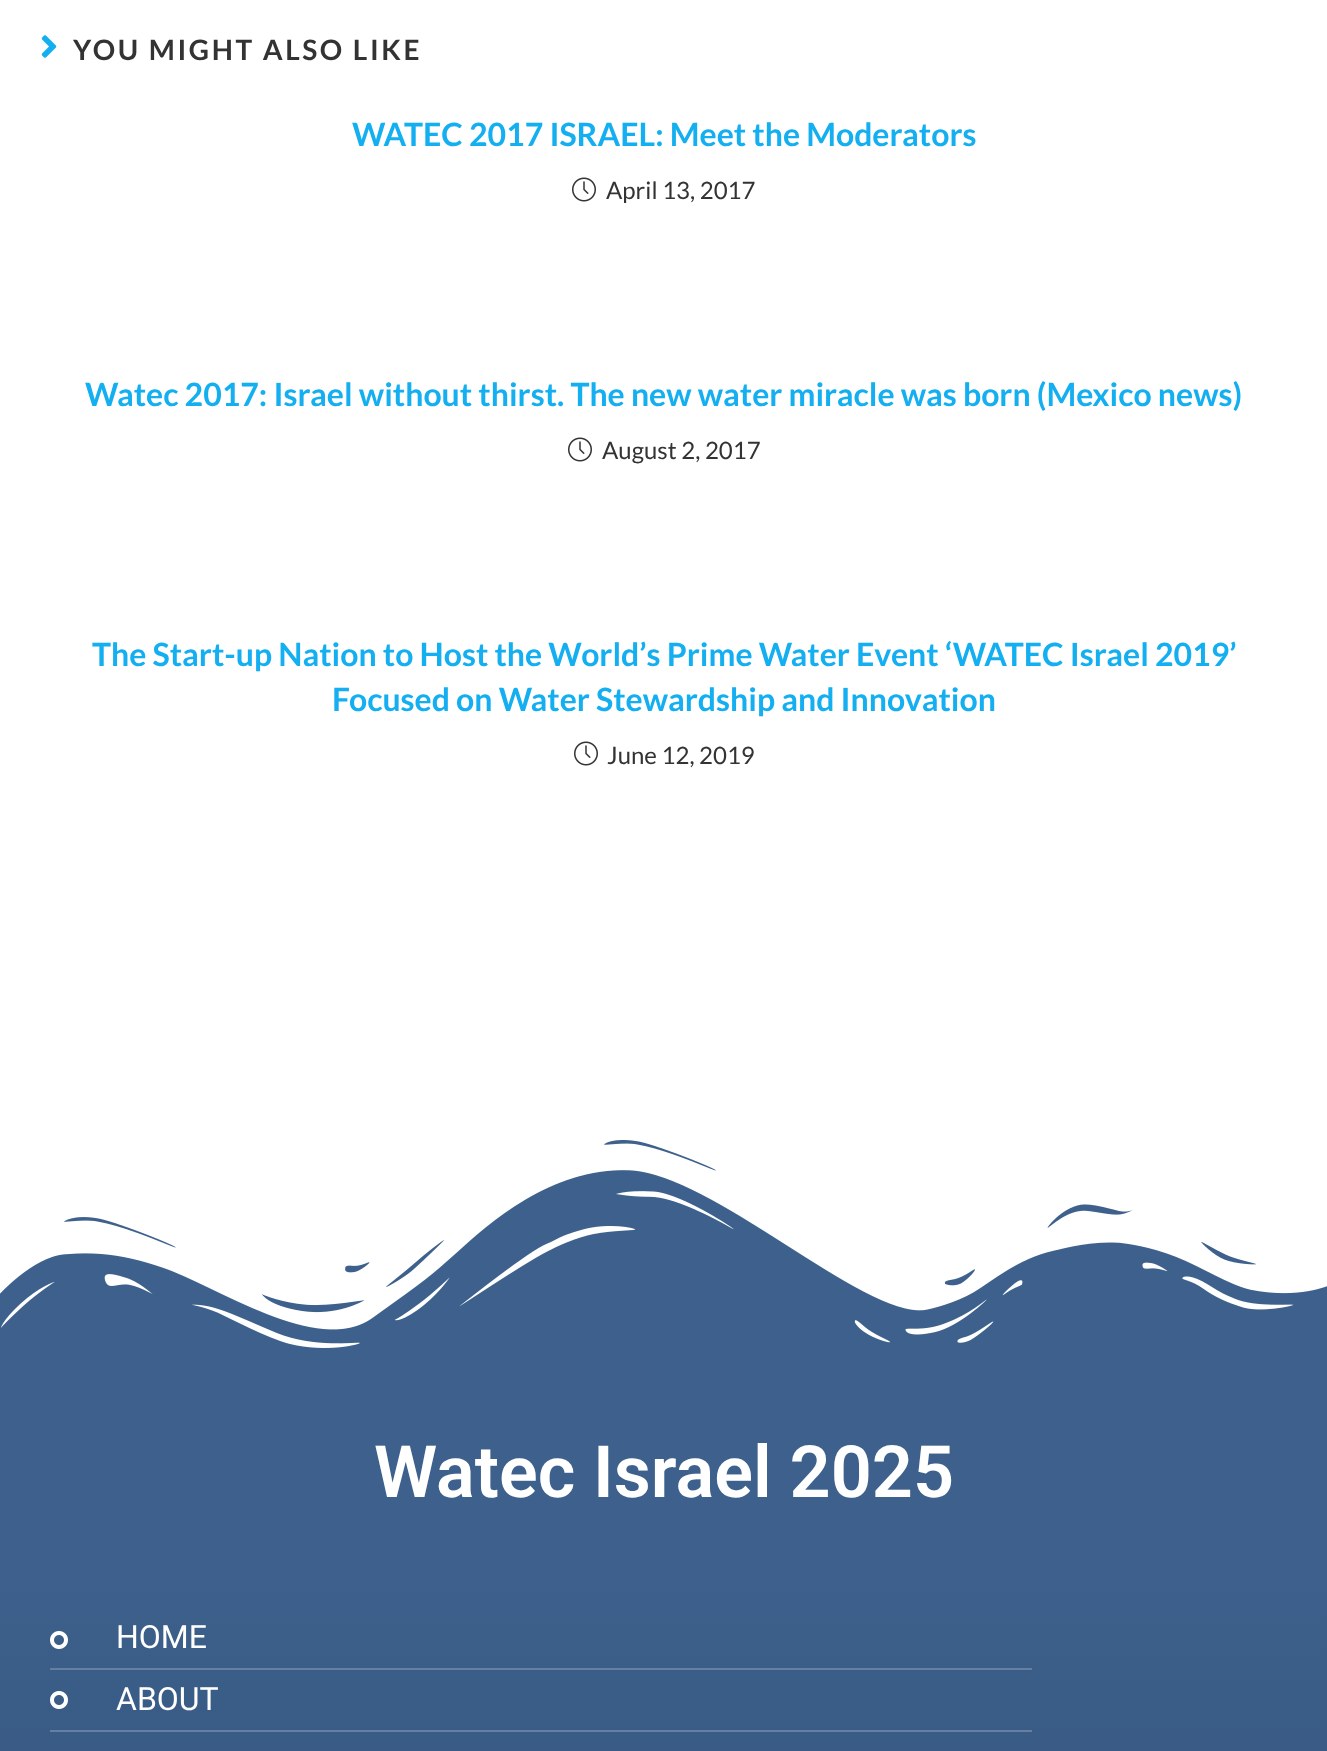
<!DOCTYPE html>
<meta charset="utf-8">
<style>body { margin: 0 } canvas { display: block }</style>
<canvas id="canvas" width="1327" height="1751"></canvas>
<script type="module">
  const canvas = document.getElementById("canvas");
  const g = canvas.getContext("2d");
  g.miterLimit = 4;
  g.fontKerning = "normal";
  function drawText(s, x, y, [font, color]) {
    g.font = font;
    g.fillStyle = color;
    g.fillText(s, x, y);
  }
  function fillBox(x, y, w, h, color) {
    g.fillStyle = color;
    g.fillRect(x, y, w, h);
  }
  async function drawPicture(src, x, y, w, h) {
    const img = new Image();
    img.src = src;
    await img.decode();
    g.drawImage(img, x, y, w, h);
  }
  let gradient;

  const s1 = ["bold 28px Lato", "#333333"];
  const s2 = ["bold 32px Lato", "#13AFF0"];
  const s3 = ["24px Lato", "#333333"];
  const s4 = ["600 72px Roboto", "#FFFFFF"];
  const s5 = ["32px Roboto", "#FFFFFF"];

  fillBox(0, 0, 1327, 1751, "#FFFFFF");
  await drawPicture("pic1.png", 41, 35, 16, 23);
  g.letterSpacing = "2.6px";
  drawText("YOU MIGHT ALSO LIKE", 73, 60, s1);
  g.letterSpacing = "0px";
  drawText("WATEC 2017 ISRAEL: Meet the Moderators", 352, 146, s2);
  await drawPicture("pic2.png", 572, 177, 24, 25);
  drawText("April 13, 2017", 606, 199, s3);
  drawText("Watec 2017: Israel without thirst. The new water miracle was born (Mexico news)", 85, 406, s2);
  await drawPicture("pic2.png", 568, 437, 24, 25);
  drawText("August 2, 2017", 602, 459, s3);
  drawText("The Start-up Nation to Host the World’s Prime Water Event ‘WATEC Israel 2019’", 92, 666, s2);
  drawText("Focused on Water Stewardship and Innovation", 332, 711, s2);
  await drawPicture("pic2.png", 574, 741, 24, 25);
  drawText("June 12, 2019", 607, 764, s3);
  await drawPicture("pic3.png", 0, 1140, 1327, 238);
  fillBox(0, 1378, 1327, 190, "#3D618C");
  drawText("Watec Israel 2025", 374, 1497, s4);
  gradient = g.createLinearGradient(664, 1568, 664, 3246);
  gradient.addColorStop(0, "#3D618C");
  gradient.addColorStop(1, "#152A4A");
  g.fillStyle = gradient;
  g.fillRect(0, 1568, 1327, 183);
  await drawPicture("pic4.png", 50, 1631, 18, 18);
  drawText("HOME", 116, 1648, s5);
  fillBox(50, 1668, 982, 2, "#667EA2");
  await drawPicture("pic5.png", 50, 1691, 18, 18);
  drawText("ABOUT", 116, 1710, s5);
  fillBox(50, 1730, 982, 2, "#667EA2");
</script>
